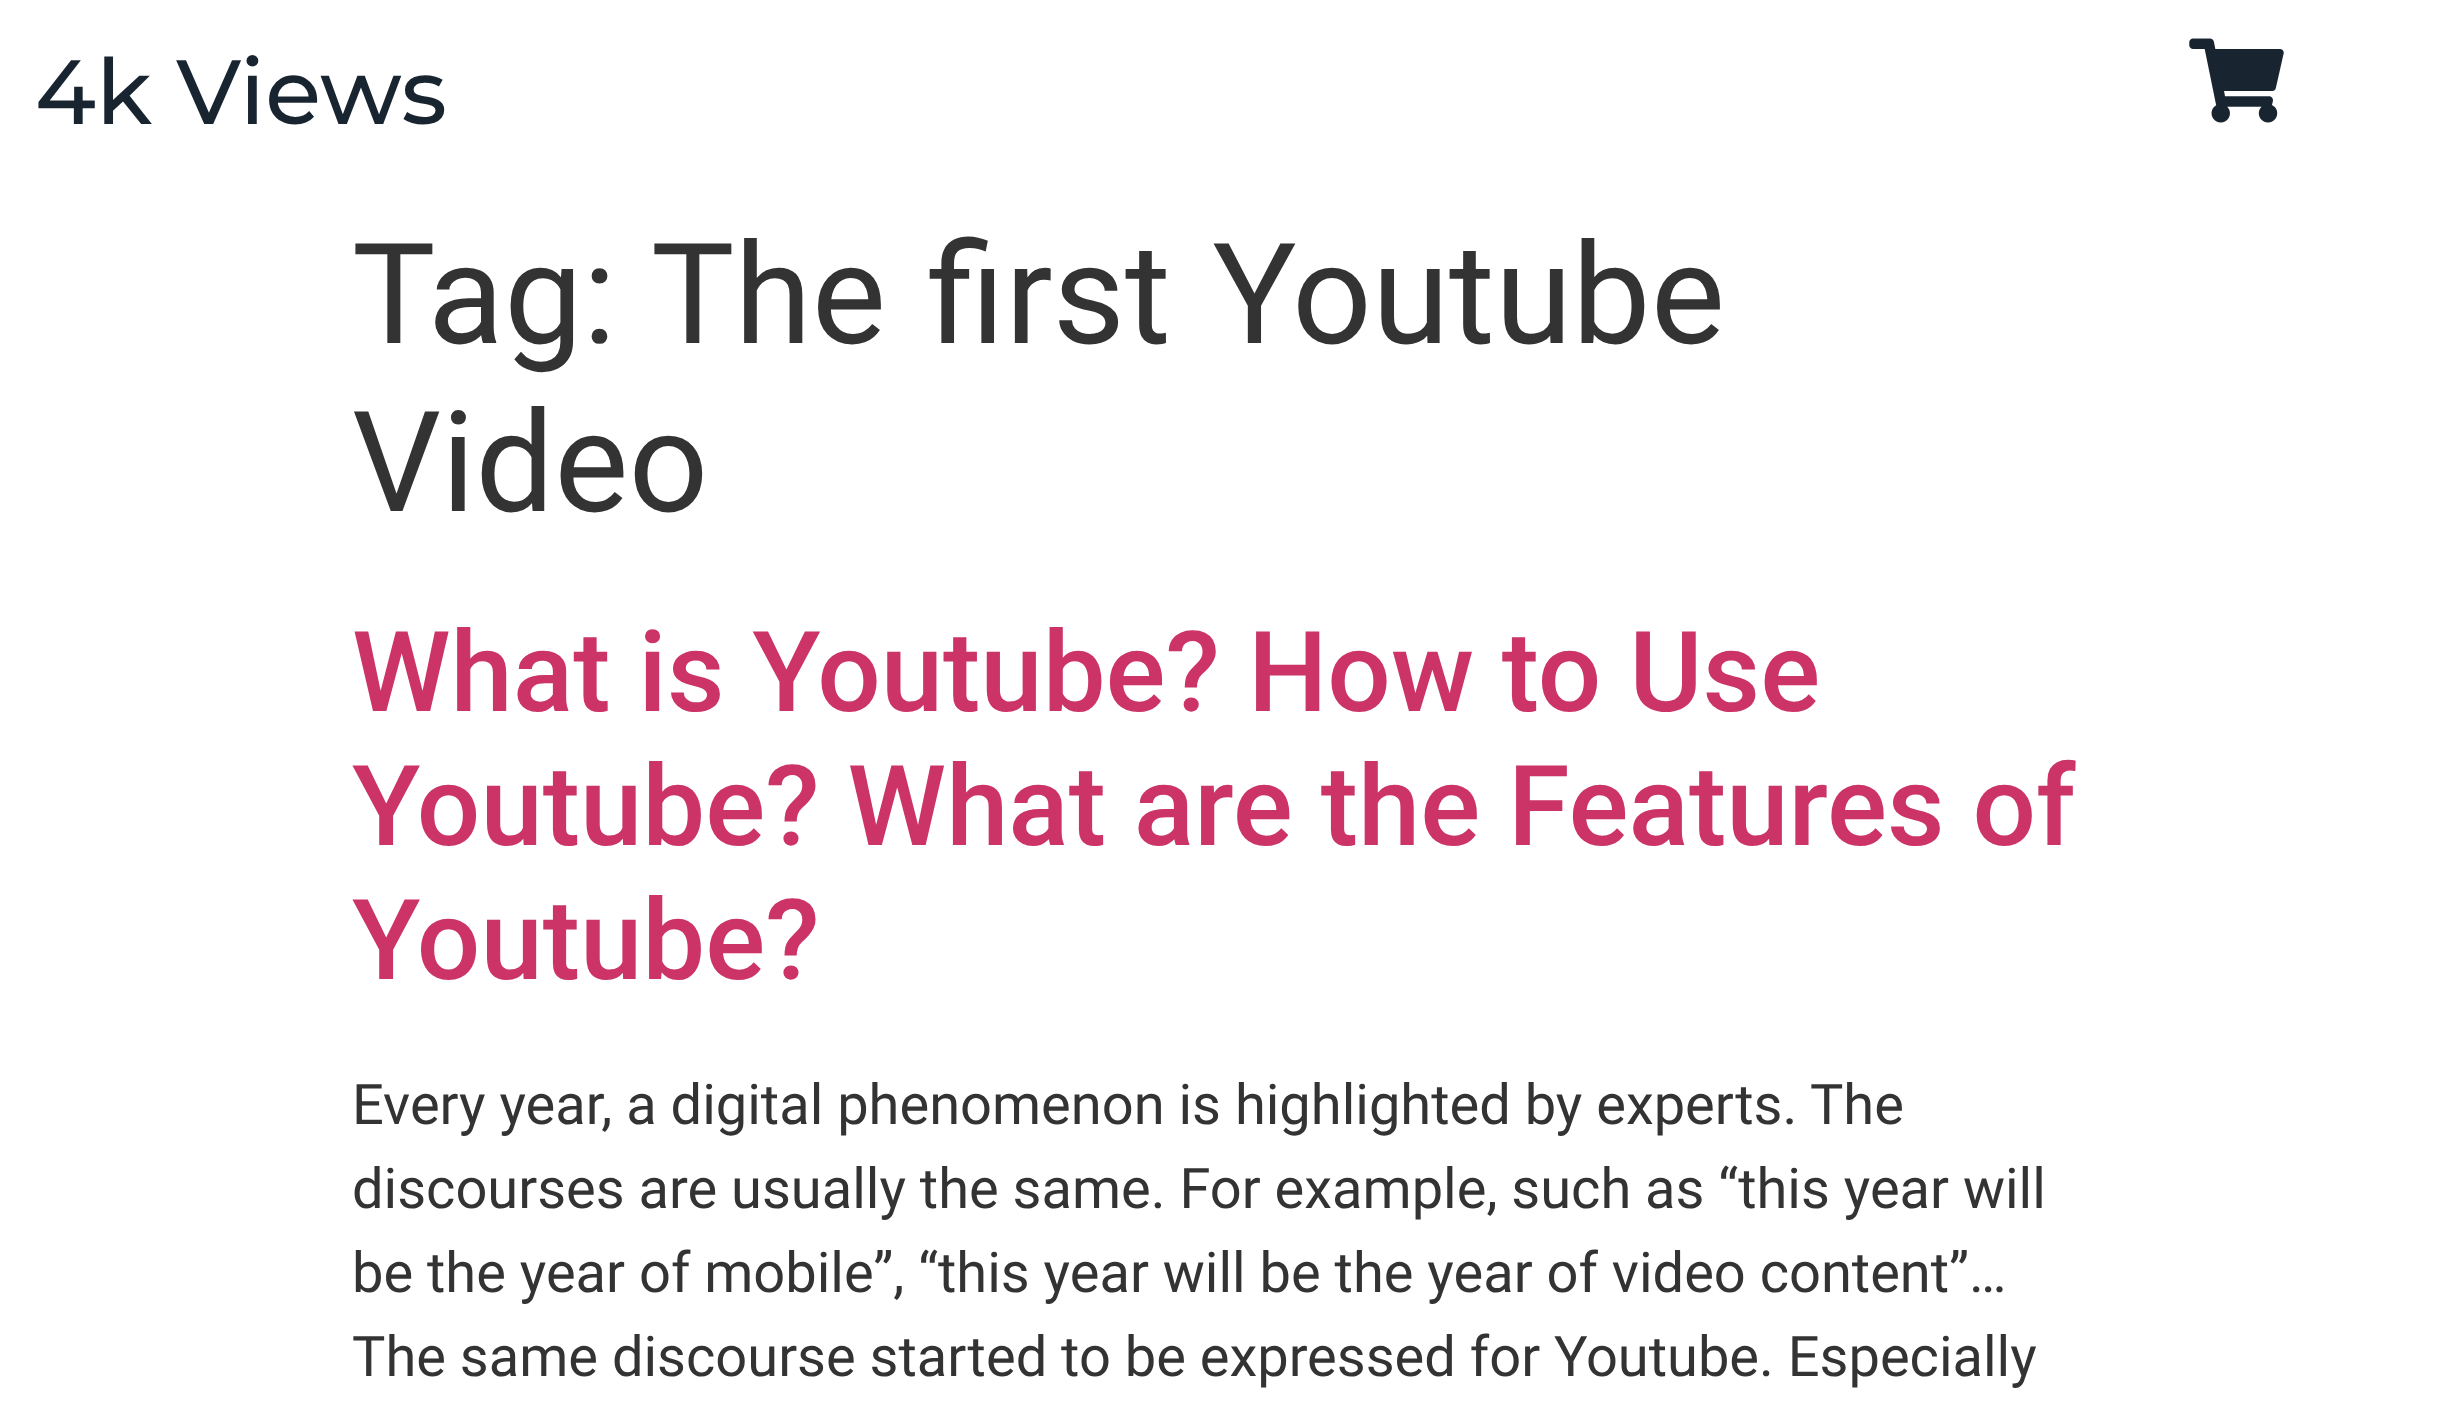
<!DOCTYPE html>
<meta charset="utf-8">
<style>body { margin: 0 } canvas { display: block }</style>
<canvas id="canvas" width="2451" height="1401"></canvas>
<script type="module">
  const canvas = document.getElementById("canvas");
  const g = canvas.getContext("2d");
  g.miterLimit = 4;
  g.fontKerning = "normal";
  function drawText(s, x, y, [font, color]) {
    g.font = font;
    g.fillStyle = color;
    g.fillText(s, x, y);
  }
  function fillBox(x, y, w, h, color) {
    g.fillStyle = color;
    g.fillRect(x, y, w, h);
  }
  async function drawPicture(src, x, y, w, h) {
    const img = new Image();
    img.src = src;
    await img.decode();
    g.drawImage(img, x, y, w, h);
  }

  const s1 = ["500 91px Montserrat", "#192431"];
  const s2 = ["140px Roboto", "#333333"];
  const s3 = ["500 112px Roboto", "#CC3366"];
  const s4 = ["56px Roboto", "#333333"];

  fillBox(0, 0, 2451, 1401, "#FFFFFF");
  drawText("4k Views", 35, 124, s1);
  await drawPicture("pic1.png", 2189, 38, 95, 85);
  drawText("Tag:", 352, 343, s2);
  g.wordSpacing = "7px";
  drawText("The first Youtube", 651, 343, s2);
  g.wordSpacing = "0px";
  drawText("Video", 352, 511, s2);
  drawText("What is Youtube? How to Use", 352, 711, s3);
  drawText("Youtube? What are the Features of", 352, 845, s3);
  drawText("Youtube?", 352, 979, s3);
  drawText("Every year, a digital phenomenon is highlighted by experts. The", 352, 1124, s4);
  drawText("discourses are usually the same. For example, such as “this year will", 352, 1208, s4);
  drawText("be the year of mobile”, “this year will be the year of video content”…", 352, 1292, s4);
  drawText("The same discourse started to be expressed for Youtube. Especially", 352, 1376, s4);
</script>
